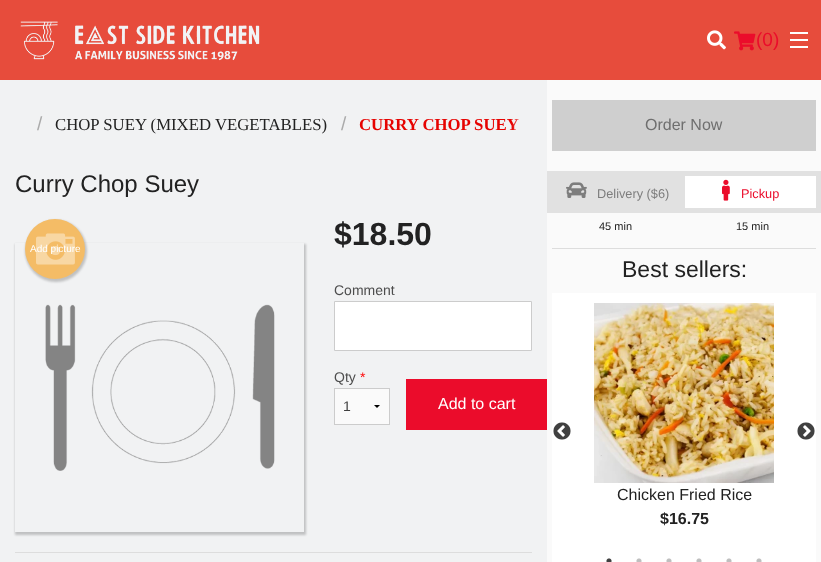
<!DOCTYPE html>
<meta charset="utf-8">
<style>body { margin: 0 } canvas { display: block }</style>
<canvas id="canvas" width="821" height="562"></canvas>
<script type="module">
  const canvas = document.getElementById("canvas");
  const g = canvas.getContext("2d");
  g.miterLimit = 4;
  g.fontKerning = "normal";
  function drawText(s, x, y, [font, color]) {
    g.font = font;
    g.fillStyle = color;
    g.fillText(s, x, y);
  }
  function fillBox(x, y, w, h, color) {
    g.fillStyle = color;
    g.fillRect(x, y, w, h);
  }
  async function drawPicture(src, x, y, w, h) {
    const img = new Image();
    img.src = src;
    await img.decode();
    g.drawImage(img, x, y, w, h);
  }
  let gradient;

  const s1 = ["19px Liberation Sans", "#EB0C2B"];
  const s2 = ["19px Liberation Sans", "#AAAAAA"];
  const s3 = ["16.75px Liberation Serif", "#222222"];
  const s4 = ["bold 16.75px Liberation Serif", "#E60301"];
  const s5 = ["24px Liberation Sans", "#222222"];
  const s6 = ["10px Liberation Sans", "#FFFFFF"];
  const s7 = ["bold 32px Liberation Sans", "#222222"];
  const s8 = ["14px Liberation Sans", "#4D4D4D"];
  const s9 = ["14px Liberation Sans", "#FF0000"];
  const s10 = ["14px Liberation Sans", "#3F3F3F"];
  const s11 = ["16px Liberation Sans", "#FFFFFF"];
  const s12 = ["16px Liberation Sans", "#6F6F6F"];
  const s13 = ["12.75px Liberation Sans", "#7D7D7D"];
  const s14 = ["12.75px Liberation Sans", "#EB0C2B"];
  const s15 = ["11px Liberation Sans", "#222222"];
  const s16 = ["23px Liberation Sans", "#222222"];
  const s17 = ["16px Liberation Sans", "#222222"];
  const s18 = ["bold 16px Liberation Sans", "#222222"];

  fillBox(0, 0, 821, 562, "#F1F2F3");
  fillBox(0, 0, 821, 80, "#E74C3C");
  await drawPicture("pic1.png", 20, 21, 240, 40);
  await drawPicture("pic2.png", 707, 30, 19, 20);
  await drawPicture("pic3.png", 734, 31, 22, 20);
  drawText("(0)", 756, 46, s1);
  fillBox(790, 46, 18, 2, "#FFFFFF");
  fillBox(790, 39, 18, 2, "#FFFFFF");
  fillBox(790, 32, 18, 2, "#FFFFFF");
  drawText("/", 37, 130, s2);
  drawText("CHOP SUEY (MIXED VEGETABLES)", 55, 130, s3);
  drawText("/", 341, 130, s2);
  drawText("CURRY CHOP SUEY", 359, 130, s4);
  gradient = g.createLinearGradient(512, 120, 547, 120);
  gradient.addColorStop(0, "rgba(241, 242, 243, 0)");
  gradient.addColorStop(0.43, "#F1F2F3");
  gradient.addColorStop(1, "#F1F2F3");
  g.fillStyle = gradient;
  g.fillRect(512, 119, 8, 11);
  drawText("Curry Chop Suey", 15, 192, s5);
  g.save();
  g.beginPath();
  g.moveTo(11, 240);
  g.lineTo(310, 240);
  g.lineTo(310, 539);
  g.lineTo(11, 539);
  g.closePath();
  g.moveTo(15, 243);
  g.lineTo(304, 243);
  g.lineTo(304, 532);
  g.lineTo(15, 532);
  g.closePath();
  g.clip("evenodd");
  g.fillStyle = "rgba(0, 0, 0, 0.2)";
  g.filter = "blur(1px)";
  g.beginPath();
  g.rect(15, 244, 291, 291);
  g.fill();
  g.filter = "none";
  g.restore();
  await drawPicture("pic4.png", 45, 304, 230, 167);
  g.fillStyle = "rgba(0, 0, 0, 0.2)";
  g.filter = "blur(1px)";
  g.beginPath();
  g.roundRect(25, 220, 62, 62, 31);
  g.fill();
  g.filter = "none";
  g.fillStyle = "#F4BC66";
  g.beginPath();
  g.arc(55, 249, 30, 0, Math.PI * 2);
  g.fill();
  await drawPicture("pic5.png", 36, 233, 39, 32);
  drawText("Add picture", 30, 252, s6);
  drawText("$18.50", 334, 245, s7);
  drawText("Comment", 334, 295, s8);
  g.fillStyle = "#FFFFFF";
  g.beginPath();
  g.rect(334.5, 301.5, 197, 49);
  g.fill();
  g.strokeStyle = "#CCCCCC";
  g.stroke();
  drawText("Qty", 334, 382, s8);
  drawText("*", 360, 382, s9);
  fillBox(335, 389, 54, 35, "#FAFAFA");
  g.fillStyle = "#000000";
  g.beginPath();
  g.moveTo(380, 405);
  g.lineTo(377, 408);
  g.lineTo(374, 405);
  g.closePath();
  g.fill();
  g.strokeRect(334.5, 388.5, 55, 36);
  drawText("1", 343, 411, s10);
  fillBox(406, 379, 141, 51, "#EB0C2B");
  drawText("Add to cart", 438, 409, s11);
  fillBox(15, 552, 517, 1, "#DDDDDD");
  fillBox(547, 80, 274, 482, "#FAFAFA");
  fillBox(552, 100, 264, 51, "#CFCFCF");
  drawText("Order Now", 645, 130, s12);
  fillBox(547, 171, 274, 42, "#E1E1E1");
  await drawPicture("pic6.png", 566, 182, 21, 16);
  drawText("Delivery ($6)", 597, 198, s13);
  fillBox(685, 176, 131, 32, "#FFFFFF");
  await drawPicture("pic7.png", 722, 179, 8, 22);
  drawText("Pickup", 741, 198, s14);
  drawText("45 min", 599, 230, s15);
  drawText("15 min", 736, 230, s15);
  fillBox(552, 248, 264, 1, "#DDDDDD");
  drawText("Best sellers:", 622, 277, s16);
  fillBox(552, 293, 264, 269, "#FFFFFF");
  await drawPicture("pic8.png", 553, 422, 18, 18);
  await drawPicture("pic9.png", 797, 422, 18, 18);
  await drawPicture("pic10.png", 594, 303, 180, 180);
  drawText("Chicken Fried Rice", 617, 500, s17);
  drawText("$16.75", 660, 524, s18);
  await drawPicture("pic11.png", 606, 558, 6, 4);
  await drawPicture("pic12.png", 636, 558, 6, 4);
  await drawPicture("pic12.png", 666, 558, 6, 4);
  await drawPicture("pic12.png", 696, 558, 6, 4);
  await drawPicture("pic12.png", 726, 558, 6, 4);
  await drawPicture("pic12.png", 756, 558, 6, 4);
</script>
